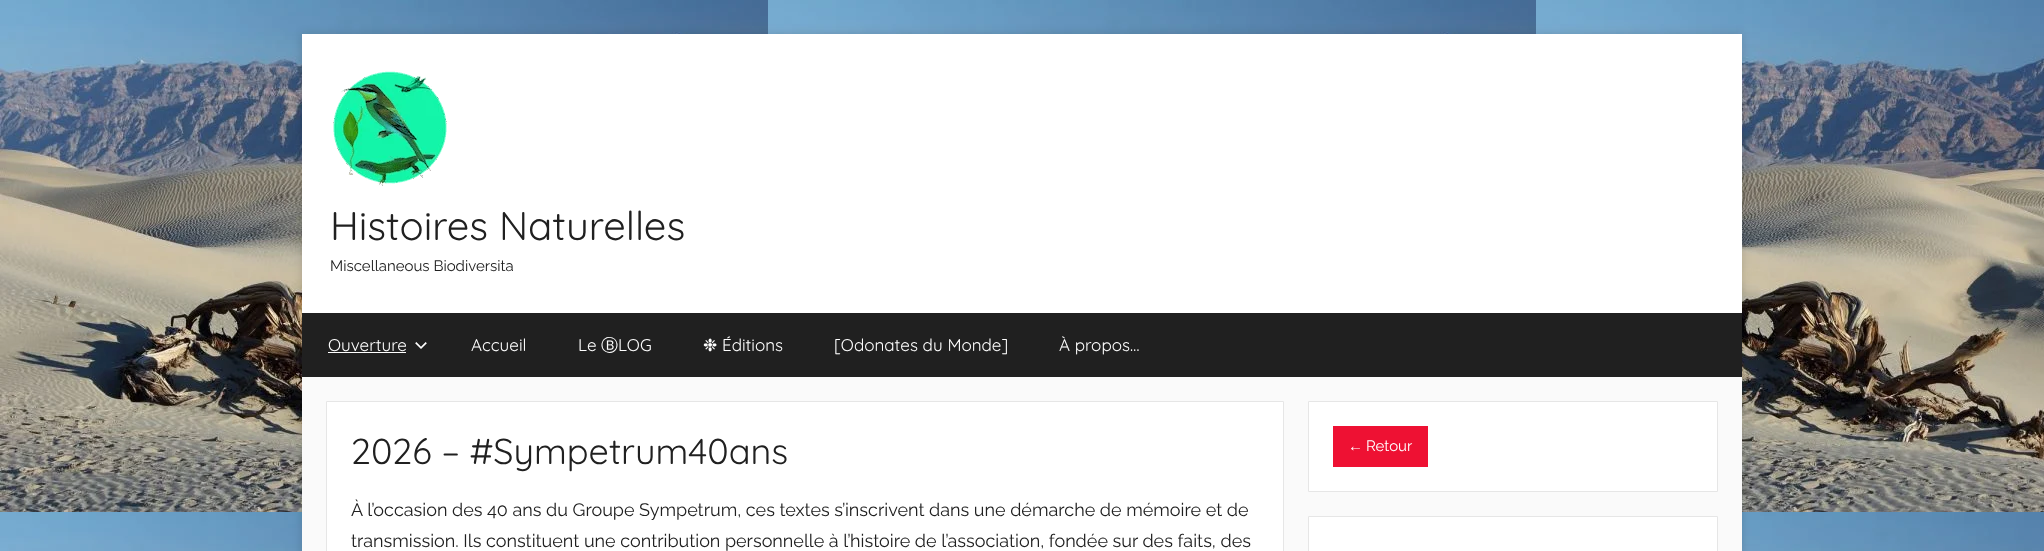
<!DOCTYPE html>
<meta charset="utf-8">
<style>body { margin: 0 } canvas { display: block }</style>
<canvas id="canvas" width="2044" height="551"></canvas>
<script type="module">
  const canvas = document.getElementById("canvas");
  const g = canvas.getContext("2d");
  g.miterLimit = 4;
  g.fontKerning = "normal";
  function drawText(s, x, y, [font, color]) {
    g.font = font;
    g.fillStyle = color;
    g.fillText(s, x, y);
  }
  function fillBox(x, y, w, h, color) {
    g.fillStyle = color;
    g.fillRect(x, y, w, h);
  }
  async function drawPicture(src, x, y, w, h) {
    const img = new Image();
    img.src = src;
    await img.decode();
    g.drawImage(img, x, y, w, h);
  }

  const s1 = ["40px Quicksand", "#202020"];
  const s2 = ["15px Raleway", "#202020"];
  const s3 = ["17px Quicksand", "#FFFFFF"];
  const s4 = ["500 17px WenQuanYi Zen Hei", "#FFFFFF"];
  const s5 = ["17px DejaVu Sans", "#FFFFFF"];
  const s6 = ["36px Quicksand", "#202020"];
  const s7 = ["18px Raleway", "#202020"];
  const s8 = ["15px Liberation Sans", "#FFFFFF"];
  const s9 = ["15px Raleway", "#FFFFFF"];

  fillBox(0, 0, 2044, 551, "#FFFFFF");
  await drawPicture("pic1.png", 0, 0, 2044, 551);
  g.fillStyle = "rgba(0, 0, 0, 0.15)";
  g.filter = "blur(5px)";
  g.beginPath();
  g.rect(302, 34, 1440, 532);
  g.fill();
  g.filter = "none";
  fillBox(302, 377, 1440, 174, "#FAFAFA");
  fillBox(302, 34, 1440, 279, "#FFFFFF");
  await drawPicture("pic2.png", 333, 71, 114, 115);
  drawText("Histoires Naturelles", 330, 240, s1);
  drawText("Miscellaneous Biodiversita", 330, 271, s2);
  fillBox(302, 313, 1440, 64, "#202020");
  drawText("Ouverture", 328, 351, s3);
  fillBox(328, 352, 78, 1, "#FFFFFF");
  await drawPicture("pic3.png", 415, 342, 12, 7);
  drawText("Accueil", 471, 351, s3);
  drawText("Le", 578, 351, s3);
  drawText("Ⓑ", 601, 351, s4);
  drawText("LOG", 618, 351, s3);
  drawText("❉", 703, 351, s5);
  drawText("Éditions", 722, 351, s3);
  drawText("[Odonates du Monde]", 834, 351, s3);
  drawText("À propos…", 1059, 351, s3);
  g.beginPath();
  g.rect(326.5, 401.5, 957, 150);
  g.fill();
  g.strokeStyle = "#E6E6E6";
  g.stroke();
  drawText("2026 – #Sympetrum40ans", 351, 464, s6);
  drawText("À l’occasion des 40 ans du Groupe Sympetrum, ces textes s’inscrivent dans une démarche de mémoire et de", 351, 516, s7);
  drawText("transmission. Ils constituent une contribution personnelle à l’histoire de l’association, fondée sur des faits, des", 351, 547, s7);
  g.fillStyle = "#FFFFFF";
  g.beginPath();
  g.rect(1308.5, 401.5, 409, 90);
  g.fill();
  g.stroke();
  fillBox(1333, 426, 95, 41, "#EE1133");
  drawText("←", 1348, 451, s8);
  drawText("Retour", 1366, 451, s9);
  g.beginPath();
  g.rect(1308.5, 516.5, 409, 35);
  g.fill();
  g.stroke();
</script>
